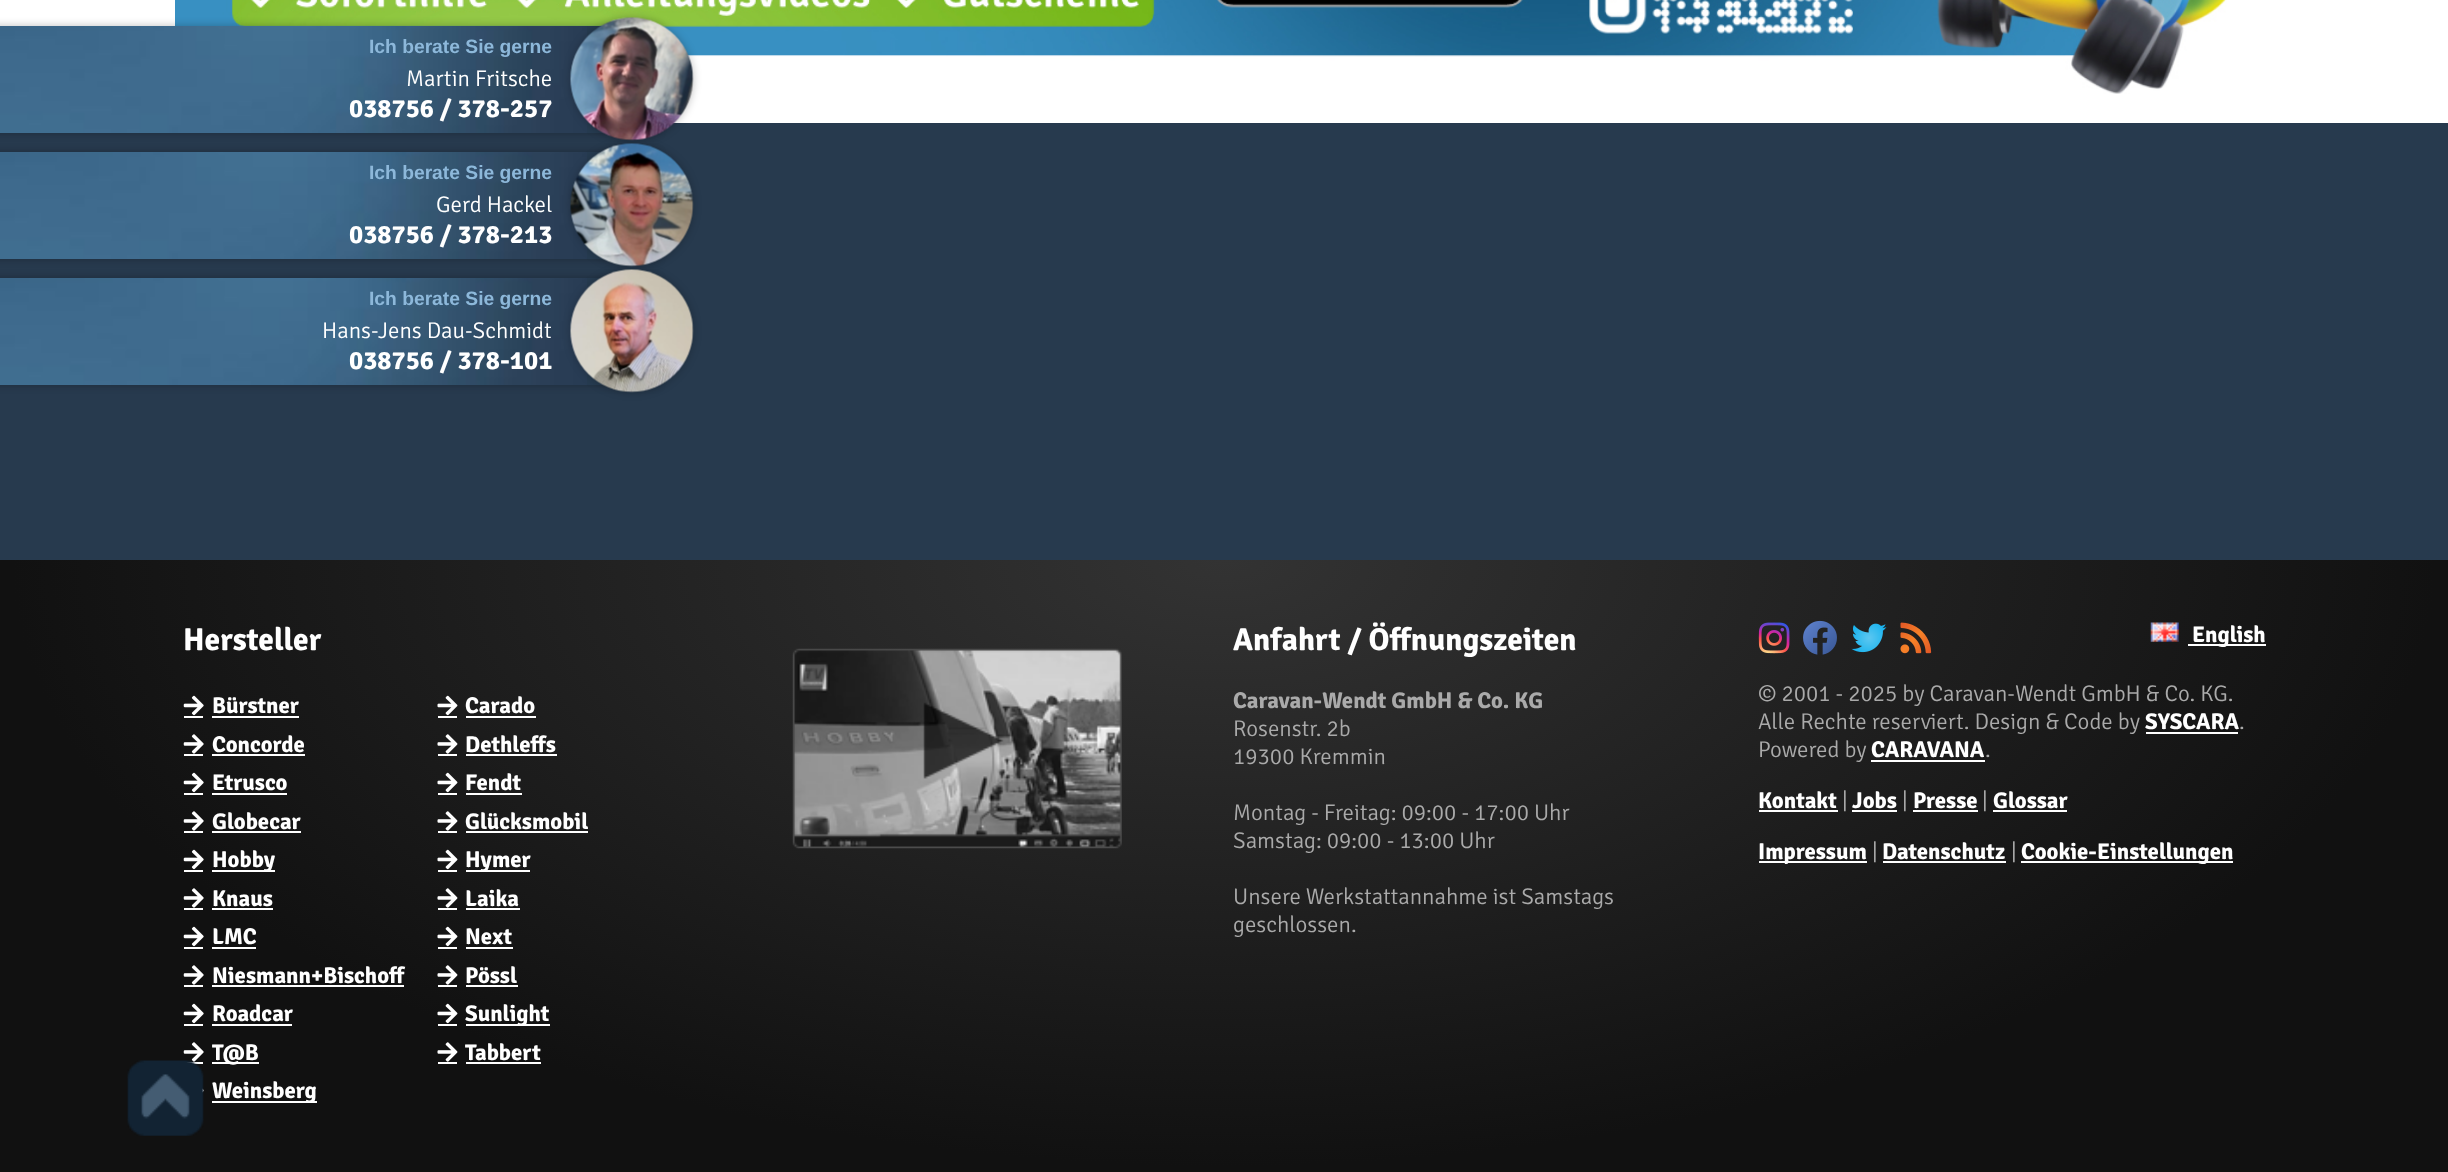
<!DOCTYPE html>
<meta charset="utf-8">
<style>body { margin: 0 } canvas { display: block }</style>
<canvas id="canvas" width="2448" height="1172"></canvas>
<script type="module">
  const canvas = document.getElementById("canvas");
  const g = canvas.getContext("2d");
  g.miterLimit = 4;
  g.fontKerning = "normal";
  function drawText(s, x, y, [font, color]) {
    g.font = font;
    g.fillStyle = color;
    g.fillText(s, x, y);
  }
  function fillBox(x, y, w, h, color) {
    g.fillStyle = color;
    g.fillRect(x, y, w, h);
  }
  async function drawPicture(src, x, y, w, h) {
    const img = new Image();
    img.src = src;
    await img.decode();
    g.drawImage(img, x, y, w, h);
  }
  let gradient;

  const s1 = ["bold 19.25px Liberation Sans", "#8DB8DA"];
  const s2 = ["300 22.75px 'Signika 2'", "#FFFFFF"];
  const s3 = ["300 26.25px Signika", "#FFFFFF"];
  const s4 = ["300 31.5px Signika", "#FFFFFF"];
  const s5 = ["300 22.75px Signika", "#FFFFFF"];
  const s6 = ["300 22.75px Signika", "#AAAAAA"];
  const s7 = ["300 22.75px 'Signika 2'", "#AAAAAA"];

  fillBox(0, 0, 2448, 1172, "#FFFFFF");
  await drawPicture("pic1.png", 175, 0, 2052, 94);
  fillBox(0, 123, 2448, 437, "#273A4E");
  g.fillStyle = "rgba(0, 0, 0, 0.25)";
  g.filter = "blur(4.5px)";
  g.beginPath();
  g.rect(-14, 26, 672, 107);
  g.fill();
  g.filter = "none";
  fillBox(587, 26, 18, 107, "#263B50");
  await drawPicture("pic2.png", 0, 26, 587, 107);
  drawText("Ich berate Sie gerne", 369, 53, s1);
  g.fillStyle = "rgba(0, 0, 0, 0.25)";
  g.filter = "blur(4.5px)";
  g.beginPath();
  g.roundRect(571, 18, 122, 122, 61);
  g.fill();
  g.filter = "none";
  await drawPicture("pic3.png", 570, 17, 124, 124);
  drawText("Martin Fritsche", 406, 86, s2);
  drawText("038756 / 378-257", 349, 117, s3);
  g.fillStyle = "rgba(0, 0, 0, 0.25)";
  g.filter = "blur(4.5px)";
  g.beginPath();
  g.rect(-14, 152, 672, 107);
  g.fill();
  g.filter = "none";
  fillBox(587, 152, 18, 107, "#263B50");
  await drawPicture("pic4.png", 0, 152, 587, 107);
  drawText("Ich berate Sie gerne", 369, 179, s1);
  g.fillStyle = "rgba(0, 0, 0, 0.25)";
  g.filter = "blur(4.5px)";
  g.beginPath();
  g.roundRect(571, 144, 122, 122, 61);
  g.fill();
  g.filter = "none";
  await drawPicture("pic5.png", 570, 143, 124, 124);
  drawText("Gerd Hackel", 436, 212, s2);
  drawText("038756 / 378-213", 349, 243, s3);
  g.fillStyle = "rgba(0, 0, 0, 0.25)";
  g.filter = "blur(4.5px)";
  g.beginPath();
  g.rect(-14, 278, 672, 107);
  g.fill();
  g.filter = "none";
  fillBox(587, 278, 18, 107, "#263B50");
  await drawPicture("pic4.png", 0, 278, 587, 107);
  drawText("Ich berate Sie gerne", 369, 305, s1);
  g.fillStyle = "rgba(0, 0, 0, 0.25)";
  g.filter = "blur(4.5px)";
  g.beginPath();
  g.roundRect(571, 270, 122, 122, 61);
  g.fill();
  g.filter = "none";
  await drawPicture("pic6.png", 570, 269, 124, 124);
  drawText("Hans-Jens Dau-Schmidt", 322, 338, s2);
  drawText("038756 / 378-101", 349, 369, s3);
  gradient = g.createRadialGradient(1224, 1119.35, 0, 1224, 1119.35, 1731);
  gradient.addColorStop(0, "#333333");
  gradient.addColorStop(0.7, "#111111");
  g.fillStyle = gradient;
  g.beginPath();
  g.rect(0, 560, 2448, 612);
  g.save();
  g.clip();
  g.scale(1, 866 / 1731);
  g.fillRect(0, 0, 2448, 2343);
  g.restore();
  await drawPicture("pic18.png", 183, 1042, 21, 20);
  fillBox(184, 1062, 19, 2, "#FFFFFF");
  await drawPicture("pic25.png", 202, 1088, 2, 5);
  await drawPicture("pic7.png", 127, 1060, 77, 76);
  drawText("Hersteller", 183, 650, s4);
  await drawPicture("pic8.png", 183, 695, 21, 21);
  drawText("Bürstner", 212, 713, s5);
  fillBox(212, 716, 87, 2, "#FFFFFF");
  fillBox(184, 716, 19, 2, "#FFFFFF");
  await drawPicture("pic9.png", 437, 695, 21, 21);
  drawText("Carado", 465, 713, s5);
  fillBox(466, 716, 70, 2, "#FFFFFF");
  fillBox(438, 716, 19, 2, "#FFFFFF");
  await drawPicture("pic10.png", 183, 734, 21, 20);
  drawText("Concorde", 212, 752, s5);
  fillBox(212, 754, 93, 2, "#FFFFFF");
  fillBox(184, 754, 19, 2, "#FFFFFF");
  await drawPicture("pic11.png", 437, 734, 21, 20);
  drawText("Dethleffs", 465, 752, s5);
  fillBox(466, 754, 91, 2, "#FFFFFF");
  fillBox(438, 754, 19, 2, "#FFFFFF");
  await drawPicture("pic12.png", 183, 772, 21, 21);
  drawText("Etrusco", 212, 790, s5);
  fillBox(212, 793, 75, 2, "#FFFFFF");
  fillBox(184, 793, 19, 2, "#FFFFFF");
  await drawPicture("pic13.png", 437, 772, 21, 21);
  drawText("Fendt", 465, 790, s5);
  fillBox(466, 793, 56, 2, "#FFFFFF");
  fillBox(438, 793, 19, 2, "#FFFFFF");
  await drawPicture("pic14.png", 183, 811, 21, 20);
  drawText("Globecar", 212, 829, s5);
  fillBox(212, 831, 89, 2, "#FFFFFF");
  fillBox(184, 831, 19, 2, "#FFFFFF");
  await drawPicture("pic15.png", 437, 811, 21, 20);
  drawText("Glücksmobil", 465, 829, s5);
  fillBox(466, 831, 122, 2, "#FFFFFF");
  fillBox(438, 831, 19, 2, "#FFFFFF");
  await drawPicture("pic16.png", 183, 849, 21, 21);
  fillBox(212, 870, 63, 2, "#FFFFFF");
  drawText("Hobby", 212, 867, s5);
  fillBox(184, 870, 19, 2, "#FFFFFF");
  await drawPicture("pic17.png", 437, 849, 21, 21);
  fillBox(466, 870, 64, 2, "#FFFFFF");
  drawText("Hymer", 465, 867, s5);
  fillBox(438, 870, 19, 2, "#FFFFFF");
  await drawPicture("pic18.png", 183, 888, 21, 20);
  drawText("Knaus", 212, 906, s5);
  fillBox(212, 908, 61, 2, "#FFFFFF");
  fillBox(184, 908, 19, 2, "#FFFFFF");
  await drawPicture("pic19.png", 437, 888, 21, 20);
  drawText("Laika", 465, 906, s5);
  fillBox(466, 908, 54, 2, "#FFFFFF");
  fillBox(438, 908, 19, 2, "#FFFFFF");
  await drawPicture("pic20.png", 183, 926, 21, 21);
  drawText("LMC", 212, 944, s5);
  fillBox(212, 947, 44, 2, "#FFFFFF");
  fillBox(184, 947, 19, 2, "#FFFFFF");
  await drawPicture("pic21.png", 437, 926, 21, 21);
  drawText("Next", 465, 944, s5);
  fillBox(466, 947, 47, 2, "#FFFFFF");
  fillBox(438, 947, 19, 2, "#FFFFFF");
  await drawPicture("pic18.png", 183, 965, 21, 20);
  drawText("Niesmann+Bischoff", 212, 983, s5);
  fillBox(212, 985, 192, 2, "#FFFFFF");
  fillBox(184, 985, 19, 2, "#FFFFFF");
  await drawPicture("pic22.png", 437, 965, 21, 20);
  drawText("Pössl", 465, 983, s5);
  fillBox(466, 985, 52, 2, "#FFFFFF");
  fillBox(438, 985, 19, 2, "#FFFFFF");
  await drawPicture("pic20.png", 183, 1003, 21, 21);
  drawText("Roadcar", 212, 1021, s5);
  fillBox(212, 1024, 80, 2, "#FFFFFF");
  fillBox(184, 1024, 19, 2, "#FFFFFF");
  await drawPicture("pic23.png", 437, 1003, 21, 21);
  fillBox(466, 1024, 84, 2, "#FFFFFF");
  drawText("Sunlight", 465, 1021, s5);
  fillBox(438, 1024, 19, 2, "#FFFFFF");
  fillBox(212, 1062, 47, 2, "#FFFFFF");
  drawText("T@B", 212, 1060, s5);
  await drawPicture("pic24.png", 437, 1042, 21, 20);
  drawText("Tabbert", 465, 1060, s5);
  fillBox(466, 1062, 75, 2, "#FFFFFF");
  fillBox(438, 1062, 19, 2, "#FFFFFF");
  fillBox(212, 1101, 105, 2, "#FFFFFF");
  drawText("Weinsberg", 212, 1098, s5);
  await drawPicture("pic26.png", 792, 648, 330, 201);
  drawText("Anfahrt / Öffnungszeiten", 1233, 650, s4);
  drawText("Caravan-Wendt GmbH & Co. KG", 1233, 708, s6);
  drawText("Rosenstr. 2b", 1233, 736, s7);
  drawText("19300 Kremmin", 1233, 764, s7);
  drawText("Montag - Freitag: 09:00 - 17:00 Uhr", 1233, 820, s7);
  drawText("Samstag: 09:00 - 13:00 Uhr", 1233, 848, s7);
  drawText("Unsere Werkstattannahme ist Samstags", 1233, 904, s7);
  drawText("geschlossen.", 1233, 932, s7);
  await drawPicture("pic27.png", 1758, 622, 32, 32);
  await drawPicture("pic28.png", 1803, 620, 34, 35);
  await drawPicture("pic29.png", 1851, 623, 36, 30);
  await drawPicture("pic30.png", 1900, 622, 32, 32);
  await drawPicture("pic31.png", 2150, 622, 29, 20);
  fillBox(2188, 644, 78, 2, "#FFFFFF");
  drawText("English", 2192, 642, s5);
  drawText("© 2001 - 2025 by Caravan-Wendt GmbH & Co. KG.", 1758, 701, s7);
  drawText("Alle Rechte reserviert. Design & Code by", 1758, 729, s7);
  drawText("SYSCARA", 2145, 729, s5);
  fillBox(2146, 732, 92, 2, "#FFFFFF");
  drawText(".", 2239, 729, s7);
  drawText("Powered by", 1758, 757, s7);
  drawText("CARAVANA", 1871, 757, s5);
  fillBox(1871, 760, 114, 2, "#FFFFFF");
  drawText(".", 1985, 757, s7);
  drawText("Kontakt", 1758, 808, s5);
  fillBox(1759, 810, 79, 2, "#FFFFFF");
  drawText("|", 1842, 808, s7);
  drawText("Jobs", 1852, 808, s5);
  fillBox(1852, 810, 45, 2, "#FFFFFF");
  drawText("|", 1902, 808, s7);
  drawText("Presse", 1913, 808, s5);
  fillBox(1913, 810, 65, 2, "#FFFFFF");
  drawText("|", 1982, 808, s7);
  drawText("Glossar", 1993, 808, s5);
  fillBox(1993, 810, 74, 2, "#FFFFFF");
  fillBox(1759, 861, 108, 2, "#FFFFFF");
  drawText("Impressum", 1758, 859, s5);
  drawText("|", 1872, 859, s7);
  drawText("Datenschutz", 1882, 859, s5);
  fillBox(1883, 861, 123, 2, "#FFFFFF");
  drawText("|", 2011, 859, s7);
  fillBox(2021, 861, 212, 2, "#FFFFFF");
  drawText("Cookie-Einstellungen", 2021, 859, s5);
</script>
